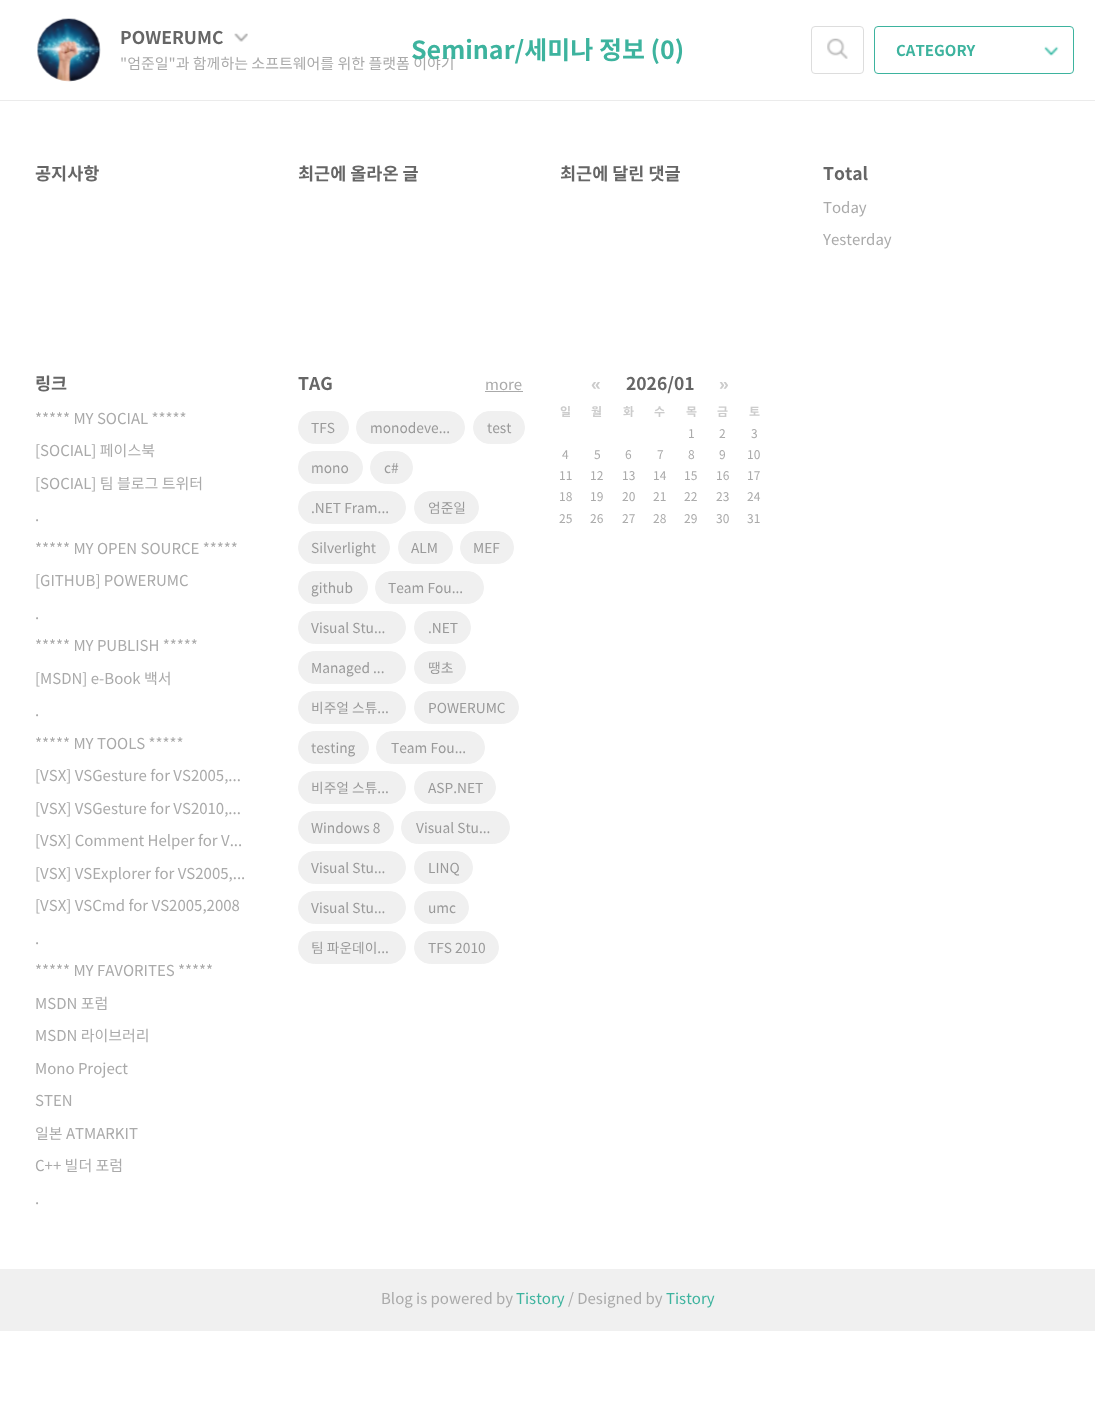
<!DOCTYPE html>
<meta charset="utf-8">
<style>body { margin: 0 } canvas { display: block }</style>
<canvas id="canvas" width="1095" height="1412"></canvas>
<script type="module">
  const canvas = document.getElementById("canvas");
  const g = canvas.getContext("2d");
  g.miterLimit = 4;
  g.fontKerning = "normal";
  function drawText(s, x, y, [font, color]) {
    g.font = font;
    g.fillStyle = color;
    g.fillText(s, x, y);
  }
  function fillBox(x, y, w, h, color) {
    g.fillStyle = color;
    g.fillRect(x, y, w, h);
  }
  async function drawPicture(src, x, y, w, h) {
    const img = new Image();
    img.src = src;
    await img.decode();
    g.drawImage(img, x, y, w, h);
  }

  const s1 = ["bold 17.5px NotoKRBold", "#666666"];
  const s2 = ["15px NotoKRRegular", "#AAAAAA"];
  const s3 = ["bold 25px NotoKRBold", "#3DB39E"];
  const s4 = ["bold 15px NotoKRBold", "#3DB39E"];
  const s5 = ["13.75px NotoKRRegular", "#999999"];
  const s6 = ["bold 17.5px Liberation Sans", "#CCCCCC"];
  const s7 = ["bold 12px NotoKRBold", "#CCCCCC"];
  const s8 = ["12px NotoKRRegular", "#AAAAAA"];
  const s9 = ["15px NotoKRRegular", "#3DB39E"];

  fillBox(0, 0, 1095, 1412, "#FFFFFF");
  fillBox(0, 100, 1095, 1, "#EBEBEB");
  await drawPicture("pic1.png", 37, 18, 64, 64);
  drawText("POWERUMC", 120, 44, s1);
  await drawPicture("pic2.png", 234, 33, 14, 9);
  drawText("\"엄준일\"과 함께하는 소프트웨어를 위한 플랫폼 이야기", 120, 69, s2);
  drawText("Seminar/세미나 정보 (0)", 411, 59, s3);
  g.beginPath();
  g.roundRect(811.5, 26.5, 52, 47, 3.5);
  g.strokeStyle = "#DDDDDD";
  g.stroke();
  await drawPicture("pic3.png", 827, 38, 21, 21);
  g.beginPath();
  g.roundRect(874.5, 26.5, 199, 47, 3.5);
  g.strokeStyle = "#3DB39E";
  g.stroke();
  drawText("CATEGORY", 896, 56, s4);
  await drawPicture("pic4.png", 1044, 46, 15, 10);
  drawText("공지사항", 35, 180, s1);
  drawText("최근에 올라온 글", 298, 180, s1);
  drawText("최근에 달린 댓글", 560, 180, s1);
  drawText("Total", 823, 180, s1);
  drawText("Today", 823, 213, s2);
  drawText("Yesterday", 823, 245, s2);
  drawText("링크", 35, 390, s1);
  drawText("***** MY SOCIAL *****", 35, 424, s2);
  drawText("[SOCIAL] 페이스북", 35, 456, s2);
  drawText("[SOCIAL] 팀 블로그 트위터", 35, 489, s2);
  drawText(".", 35, 521, s2);
  drawText("***** MY OPEN SOURCE *****", 35, 554, s2);
  drawText("[GITHUB] POWERUMC", 35, 586, s2);
  drawText(".", 35, 619, s2);
  drawText("***** MY PUBLISH *****", 35, 651, s2);
  drawText("[MSDN] e-Book 백서", 35, 684, s2);
  drawText(".", 35, 716, s2);
  drawText("***** MY TOOLS *****", 35, 749, s2);
  drawText("[VSX] VSGesture for VS2005,...", 35, 781, s2);
  drawText("[VSX] VSGesture for VS2010,...", 35, 814, s2);
  drawText("[VSX] Comment Helper for V...", 35, 846, s2);
  drawText("[VSX] VSExplorer for VS2005,...", 35, 879, s2);
  drawText("[VSX] VSCmd for VS2005,2008", 35, 911, s2);
  drawText(".", 35, 944, s2);
  drawText("***** MY FAVORITES *****", 35, 976, s2);
  drawText("MSDN 포럼", 35, 1009, s2);
  drawText("MSDN 라이브러리", 35, 1041, s2);
  drawText("Mono Project", 35, 1074, s2);
  drawText("STEN", 35, 1106, s2);
  drawText("일본 ATMARKIT", 35, 1139, s2);
  drawText("C++ 빌더 포럼", 35, 1171, s2);
  drawText(".", 35, 1204, s2);
  drawText("TAG", 298, 390, s1);
  drawText("more", 485, 390, s2);
  fillBox(485, 391, 38, 1, "#AAAAAA");
  g.fillStyle = "#F0F0F0";
  g.beginPath();
  g.roundRect(298.5, 411.5, 50, 32, 16);
  g.fill();
  g.strokeStyle = "#F0F0F0";
  g.stroke();
  drawText("TFS", 311, 433, s5);
  g.fillStyle = "#F0F0F0";
  g.beginPath();
  g.roundRect(356.5, 411.5, 108, 32, 16);
  g.fill();
  g.stroke();
  drawText("monodeve...", 370, 433, s5);
  g.fillStyle = "#F0F0F0";
  g.beginPath();
  g.roundRect(473.5, 411.5, 51, 32, 16);
  g.fill();
  g.stroke();
  drawText("test", 487, 433, s5);
  g.fillStyle = "#F0F0F0";
  g.beginPath();
  g.roundRect(298.5, 451.5, 64, 32, 16);
  g.fill();
  g.stroke();
  drawText("mono", 311, 473, s5);
  g.fillStyle = "#F0F0F0";
  g.beginPath();
  g.roundRect(370.5, 451.5, 42, 32, 16);
  g.fill();
  g.stroke();
  drawText("c#", 384, 473, s5);
  g.fillStyle = "#F0F0F0";
  g.beginPath();
  g.roundRect(298.5, 491.5, 107, 32, 16);
  g.fill();
  g.stroke();
  drawText(".NET Fram...", 311, 513, s5);
  g.fillStyle = "#F0F0F0";
  g.beginPath();
  g.roundRect(414.5, 491.5, 64, 32, 16);
  g.fill();
  g.stroke();
  drawText("엄준일", 428, 513, s5);
  g.fillStyle = "#F0F0F0";
  g.beginPath();
  g.roundRect(298.5, 531.5, 91, 32, 16);
  g.fill();
  g.stroke();
  drawText("Silverlight", 311, 553, s5);
  g.fillStyle = "#F0F0F0";
  g.beginPath();
  g.roundRect(398.5, 531.5, 54, 32, 16);
  g.fill();
  g.stroke();
  drawText("ALM", 411, 553, s5);
  g.fillStyle = "#F0F0F0";
  g.beginPath();
  g.roundRect(460.5, 531.5, 53, 32, 16);
  g.fill();
  g.stroke();
  drawText("MEF", 473, 553, s5);
  g.fillStyle = "#F0F0F0";
  g.beginPath();
  g.roundRect(298.5, 571.5, 69, 32, 16);
  g.fill();
  g.stroke();
  drawText("github", 311, 593, s5);
  g.fillStyle = "#F0F0F0";
  g.beginPath();
  g.roundRect(375.5, 571.5, 108, 32, 16);
  g.fill();
  g.stroke();
  drawText("Team Fou...", 388, 593, s5);
  g.fillStyle = "#F0F0F0";
  g.beginPath();
  g.roundRect(298.5, 611.5, 107, 32, 16);
  g.fill();
  g.stroke();
  drawText("Visual Stu...", 311, 633, s5);
  g.fillStyle = "#F0F0F0";
  g.beginPath();
  g.roundRect(414.5, 611.5, 56, 32, 16);
  g.fill();
  g.stroke();
  drawText(".NET", 428, 633, s5);
  g.fillStyle = "#F0F0F0";
  g.beginPath();
  g.roundRect(298.5, 651.5, 107, 32, 16);
  g.fill();
  g.stroke();
  drawText("Managed ...", 311, 673, s5);
  g.fillStyle = "#F0F0F0";
  g.beginPath();
  g.roundRect(414.5, 651.5, 51, 32, 16);
  g.fill();
  g.stroke();
  drawText("땡초", 428, 673, s5);
  g.fillStyle = "#F0F0F0";
  g.beginPath();
  g.roundRect(298.5, 691.5, 107, 32, 16);
  g.fill();
  g.stroke();
  drawText("비주얼 스튜...", 311, 713, s5);
  g.fillStyle = "#F0F0F0";
  g.beginPath();
  g.roundRect(414.5, 691.5, 104, 32, 16);
  g.fill();
  g.stroke();
  drawText("POWERUMC", 428, 713, s5);
  g.fillStyle = "#F0F0F0";
  g.beginPath();
  g.roundRect(298.5, 731.5, 70, 32, 16);
  g.fill();
  g.stroke();
  drawText("testing", 311, 753, s5);
  g.fillStyle = "#F0F0F0";
  g.beginPath();
  g.roundRect(376.5, 731.5, 108, 32, 16);
  g.fill();
  g.stroke();
  drawText("Team Fou...", 391, 753, s5);
  g.fillStyle = "#F0F0F0";
  g.beginPath();
  g.roundRect(298.5, 771.5, 107, 32, 16);
  g.fill();
  g.stroke();
  drawText("비주얼 스튜...", 311, 793, s5);
  g.fillStyle = "#F0F0F0";
  g.beginPath();
  g.roundRect(414.5, 771.5, 81, 32, 16);
  g.fill();
  g.stroke();
  drawText("ASP.NET", 428, 793, s5);
  g.fillStyle = "#F0F0F0";
  g.beginPath();
  g.roundRect(298.5, 811.5, 95, 32, 16);
  g.fill();
  g.stroke();
  drawText("Windows 8", 311, 833, s5);
  g.fillStyle = "#F0F0F0";
  g.beginPath();
  g.roundRect(401.5, 811.5, 108, 32, 16);
  g.fill();
  g.stroke();
  drawText("Visual Stu...", 416, 833, s5);
  g.fillStyle = "#F0F0F0";
  g.beginPath();
  g.roundRect(298.5, 851.5, 107, 32, 16);
  g.fill();
  g.stroke();
  drawText("Visual Stu...", 311, 873, s5);
  g.fillStyle = "#F0F0F0";
  g.beginPath();
  g.roundRect(414.5, 851.5, 58, 32, 16);
  g.fill();
  g.stroke();
  drawText("LINQ", 428, 873, s5);
  g.fillStyle = "#F0F0F0";
  g.beginPath();
  g.roundRect(298.5, 891.5, 107, 32, 16);
  g.fill();
  g.stroke();
  drawText("Visual Stu...", 311, 913, s5);
  g.fillStyle = "#F0F0F0";
  g.beginPath();
  g.roundRect(414.5, 891.5, 54, 32, 16);
  g.fill();
  g.stroke();
  drawText("umc", 428, 913, s5);
  g.fillStyle = "#F0F0F0";
  g.beginPath();
  g.roundRect(298.5, 931.5, 107, 32, 16);
  g.fill();
  g.stroke();
  drawText("팀 파운데이...", 311, 953, s5);
  g.fillStyle = "#F0F0F0";
  g.beginPath();
  g.roundRect(414.5, 931.5, 84, 32, 16);
  g.fill();
  g.stroke();
  drawText("TFS 2010", 428, 953, s5);
  drawText("«", 591, 390, s6);
  drawText("2026/01", 626, 390, s1);
  drawText("»", 719, 390, s6);
  drawText("일", 560, 416, s7);
  drawText("월", 591, 416, s7);
  drawText("화", 623, 416, s7);
  drawText("수", 654, 416, s7);
  drawText("목", 686, 416, s7);
  drawText("금", 717, 416, s7);
  drawText("토", 749, 416, s7);
  drawText("1", 688, 438, s8);
  drawText("2", 719, 438, s8);
  drawText("3", 751, 438, s8);
  drawText("4", 562, 459, s8);
  drawText("5", 594, 459, s8);
  drawText("6", 625, 459, s8);
  drawText("7", 657, 459, s8);
  drawText("8", 688, 459, s8);
  drawText("9", 719, 459, s8);
  drawText("10", 747, 459, s8);
  drawText("11", 559, 480, s8);
  drawText("12", 590, 480, s8);
  drawText("13", 622, 480, s8);
  drawText("14", 653, 480, s8);
  drawText("15", 684, 480, s8);
  drawText("16", 716, 480, s8);
  drawText("17", 747, 480, s8);
  drawText("18", 559, 501, s8);
  drawText("19", 590, 501, s8);
  drawText("20", 622, 501, s8);
  drawText("21", 653, 501, s8);
  drawText("22", 684, 501, s8);
  drawText("23", 716, 501, s8);
  drawText("24", 747, 501, s8);
  drawText("25", 559, 523, s8);
  drawText("26", 590, 523, s8);
  drawText("27", 622, 523, s8);
  drawText("28", 653, 523, s8);
  drawText("29", 684, 523, s8);
  drawText("30", 716, 523, s8);
  drawText("31", 747, 523, s8);
  fillBox(0, 1269, 1095, 62, "#F0F0F0");
  drawText("Blog is powered by", 381, 1304, s2);
  drawText("Tistory", 516, 1304, s9);
  drawText("/ Designed by", 568, 1304, s2);
  drawText("Tistory", 666, 1304, s9);
</script>
